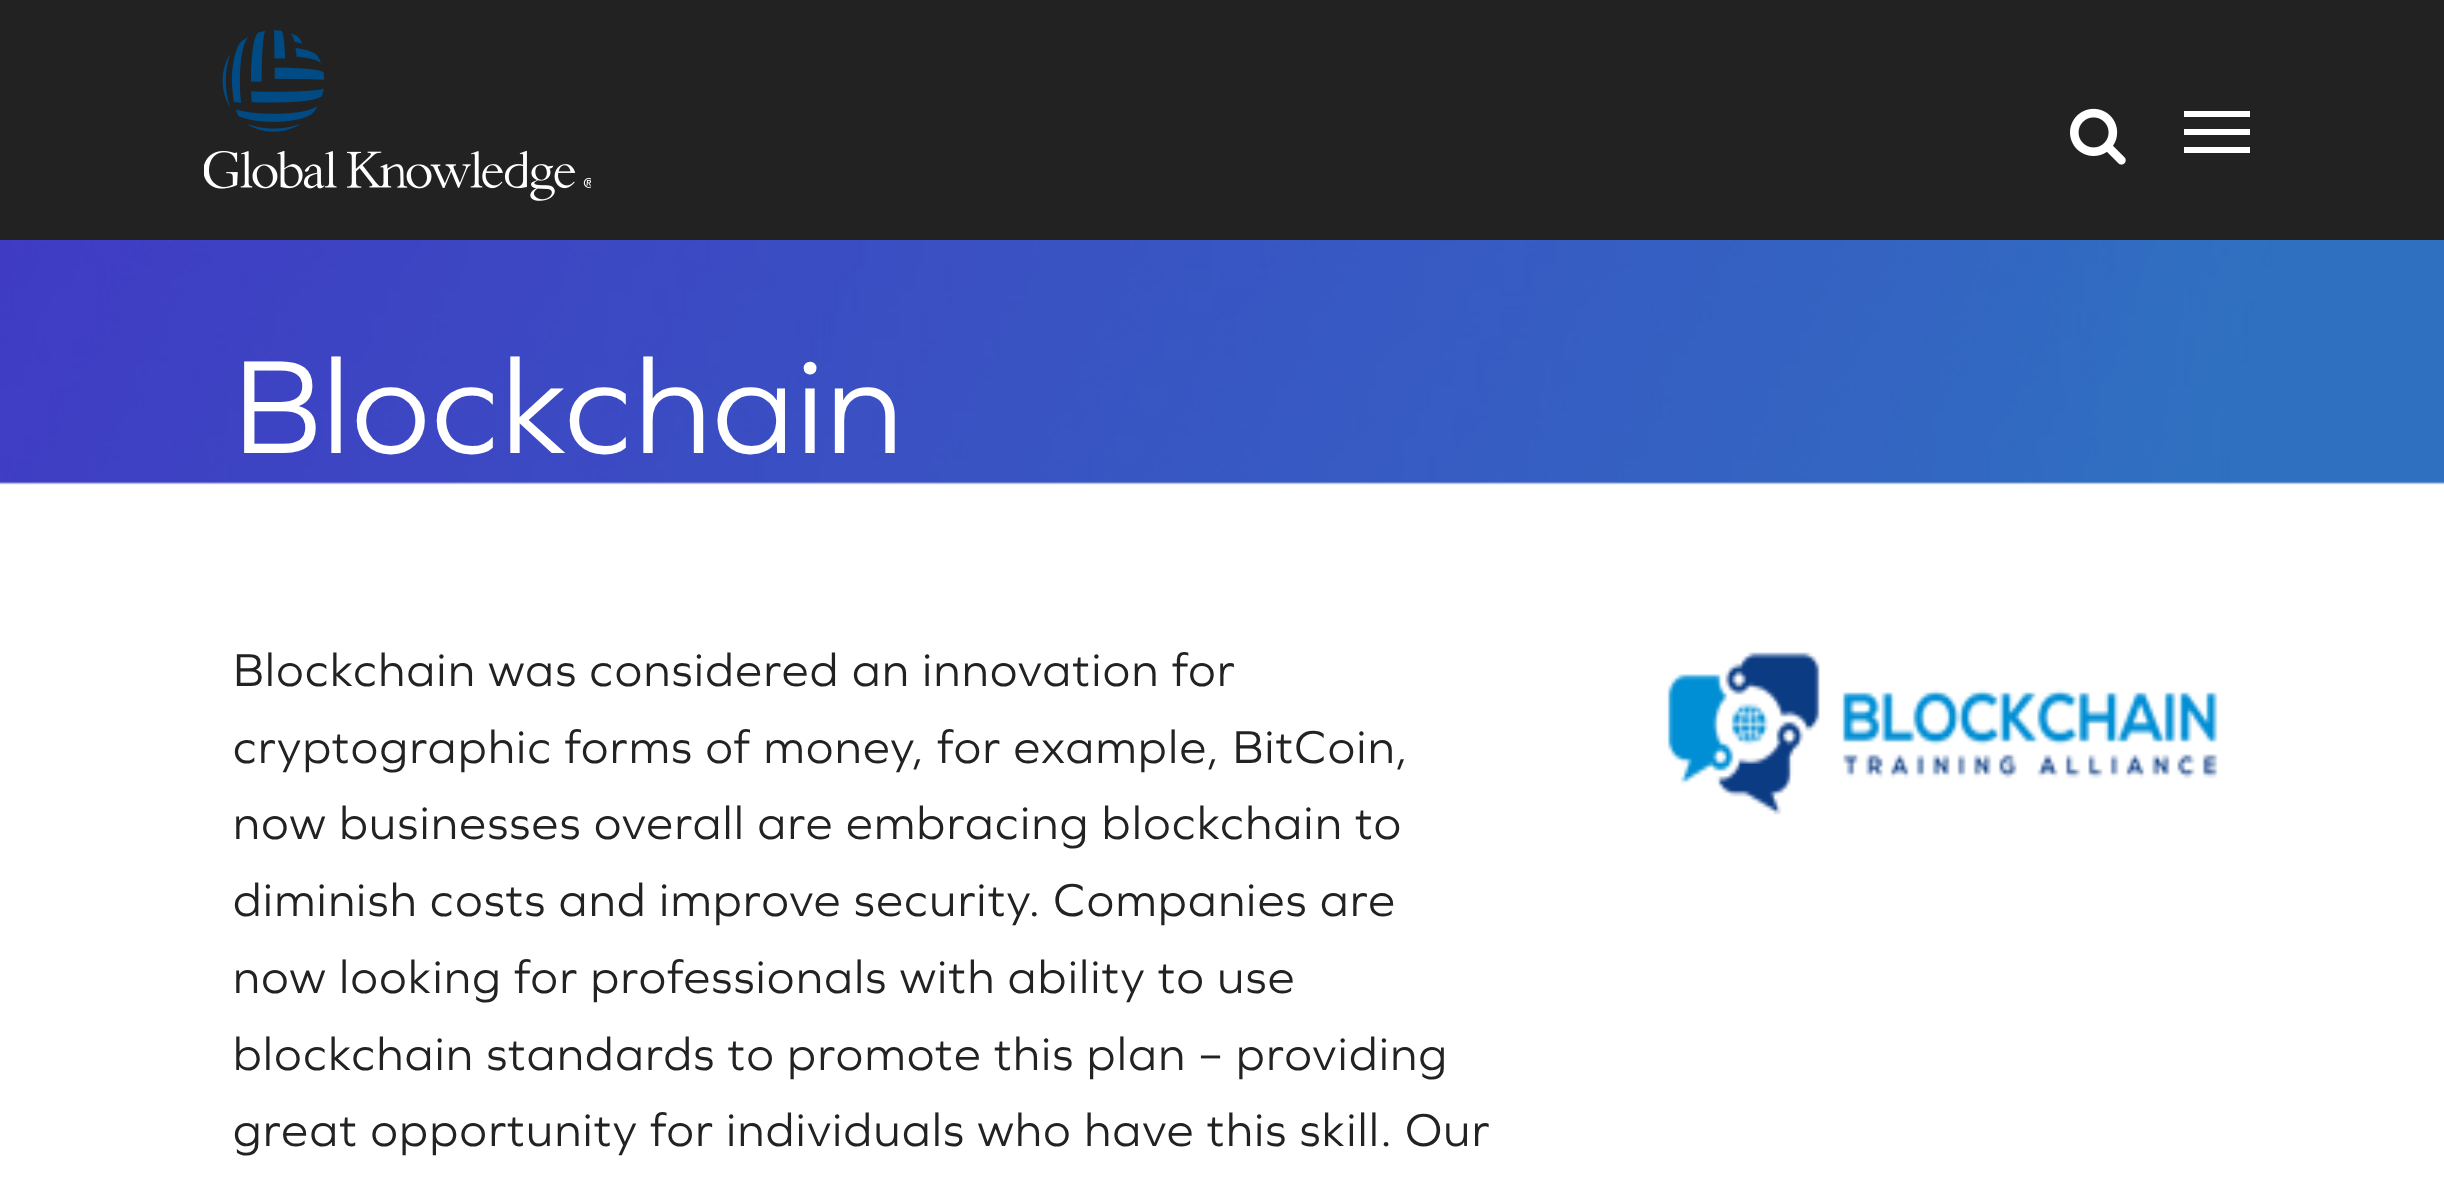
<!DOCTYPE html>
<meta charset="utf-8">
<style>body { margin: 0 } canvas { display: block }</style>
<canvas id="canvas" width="2444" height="1178"></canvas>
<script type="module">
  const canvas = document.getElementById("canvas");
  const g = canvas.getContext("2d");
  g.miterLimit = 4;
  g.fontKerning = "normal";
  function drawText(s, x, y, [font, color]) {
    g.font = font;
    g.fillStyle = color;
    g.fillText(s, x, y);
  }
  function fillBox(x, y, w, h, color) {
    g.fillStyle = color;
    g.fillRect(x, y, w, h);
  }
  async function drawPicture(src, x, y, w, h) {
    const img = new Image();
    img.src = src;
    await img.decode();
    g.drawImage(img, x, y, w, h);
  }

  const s1 = ["138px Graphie", "#FFFFFF"];
  const s2 = ["48px Graphie", "#222222"];

  fillBox(0, 0, 2444, 1178, "#FFFFFF");
  fillBox(0, 0, 2444, 240, "#222222");
  await drawPicture("pic1.png", 204, 30, 387, 171);
  await drawPicture("pic2.png", 2070, 108, 56, 57);
  fillBox(2184, 111, 66, 6, "#FFFFFF");
  fillBox(2184, 129, 66, 6, "#FFFFFF");
  fillBox(2184, 147, 66, 6, "#FFFFFF");
  await drawPicture("pic3.png", 0, 240, 2444, 245);
  g.letterSpacing = "1.5px";
  drawText("Blockchain", 233, 453, s1);
  drawText("Blockchain was considered an innovation for", 233, 686, s2);
  drawText("cryptographic forms of money, for example, BitCoin,", 233, 763, s2);
  drawText("now businesses overall are embracing blockchain to", 233, 839, s2);
  drawText("diminish costs and improve security. Companies are", 233, 916, s2);
  drawText("now looking for professionals with ability to use", 233, 993, s2);
  drawText("blockchain standards to promote this plan – providing", 233, 1070, s2);
  drawText("great opportunity for individuals who have this skill. Our", 233, 1146, s2);
  await drawPicture("pic4.png", 1667, 652, 551, 163);
</script>
